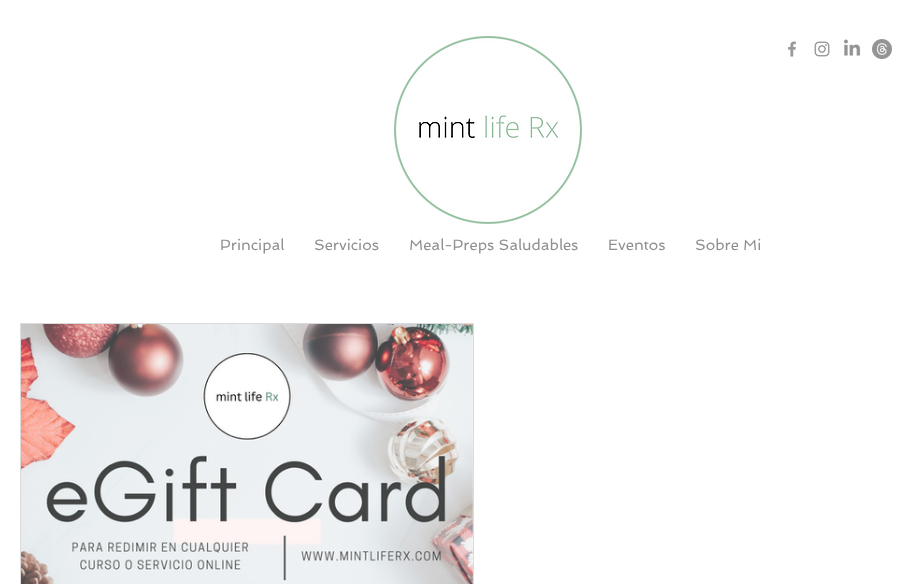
<!DOCTYPE html>
<meta charset="utf-8">
<style>body { margin: 0 } canvas { display: block }</style>
<canvas id="canvas" width="897" height="584"></canvas>
<script type="module">
  const canvas = document.getElementById("canvas");
  const g = canvas.getContext("2d");
  g.miterLimit = 4;
  g.fontKerning = "normal";
  function drawText(s, x, y, [font, color]) {
    g.font = font;
    g.fillStyle = color;
    g.fillText(s, x, y);
  }
  function fillBox(x, y, w, h, color) {
    g.fillStyle = color;
    g.fillRect(x, y, w, h);
  }
  async function drawPicture(src, x, y, w, h) {
    const img = new Image();
    img.src = src;
    await img.decode();
    g.drawImage(img, x, y, w, h);
  }

  const s1 = ["15px Spinnaker", "#8F8F8F"];

  fillBox(0, 0, 897, 584, "#FFFFFF");
  await drawPicture("pic1.png", 394, 36, 188, 188);
  await drawPicture("pic2.png", 788, 41, 8, 16);
  await drawPicture("pic3.png", 814, 41, 16, 16);
  await drawPicture("pic4.png", 843, 39, 18, 17);
  await drawPicture("pic5.png", 872, 39, 20, 20);
  drawText("Principal", 220, 250, s1);
  drawText("Servicios", 314, 250, s1);
  drawText("Meal-Preps Saludables", 409, 250, s1);
  drawText("Eventos", 608, 250, s1);
  drawText("Sobre Mi", 695, 250, s1);
  g.strokeStyle = "#DBDBDB";
  g.strokeRect(20.5, 323.5, 453, 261);
  await drawPicture("pic6.png", 21, 324, 452, 260);
</script>
